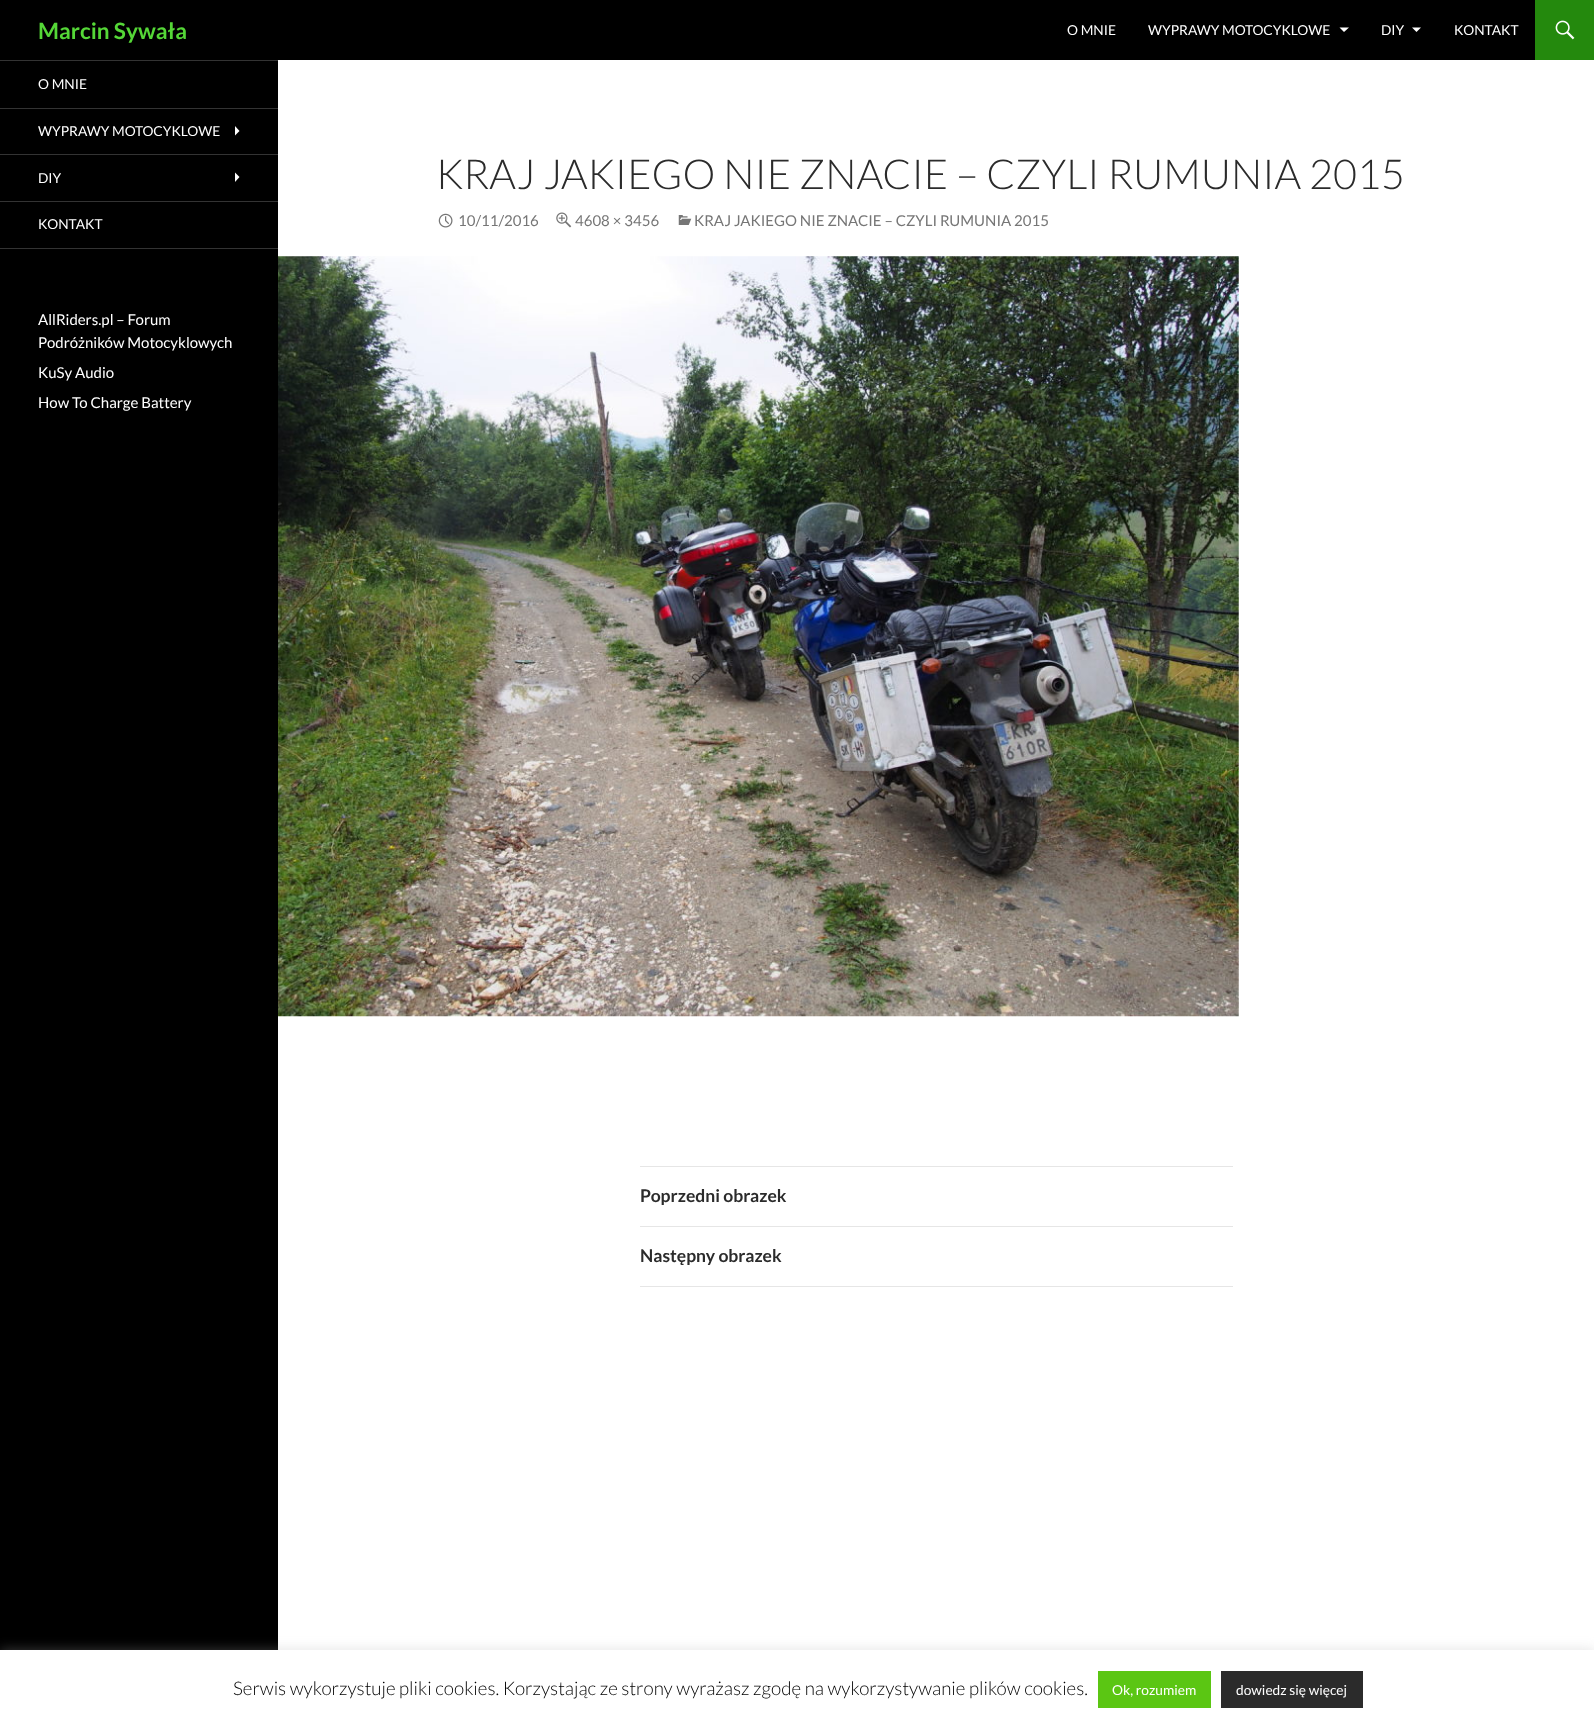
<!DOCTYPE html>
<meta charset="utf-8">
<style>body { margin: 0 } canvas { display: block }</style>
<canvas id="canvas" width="1594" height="1722"></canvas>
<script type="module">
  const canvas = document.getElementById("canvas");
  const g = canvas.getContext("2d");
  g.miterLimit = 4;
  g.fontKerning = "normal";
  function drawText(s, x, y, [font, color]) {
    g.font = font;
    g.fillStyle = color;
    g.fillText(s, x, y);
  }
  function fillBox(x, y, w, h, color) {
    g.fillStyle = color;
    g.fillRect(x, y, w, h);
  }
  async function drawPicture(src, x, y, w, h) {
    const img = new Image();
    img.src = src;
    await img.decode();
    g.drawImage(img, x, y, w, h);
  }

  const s1 = ["bold 22.5px Lato", "#55D737"];
  const s2 = ["13.75px Lato", "#FFFFFF"];
  const s3 = ["15px Lato", "#FFFFFF"];
  const s4 = ["300 41.25px Lato", "#2B2B2B"];
  const s5 = ["15px Lato", "#767676"];
  const s6 = ["bold 17.5px Lato", "#2B2B2B"];
  const s7 = ["300 18.75px Lato", "#000000"];

  fillBox(0, 0, 1594, 1722, "#FFFFFF");
  fillBox(0, 0, 1535, 60, "#000000");
  drawText("Marcin Sywała", 38, 39, s1);
  drawText("O MNIE", 1067, 35, s2);
  drawText("WYPRAWY MOTOCYKLOWE", 1148, 35, s2);
  g.beginPath();
  g.moveTo(1339.5, 27.5);
  g.lineTo(1344, 32);
  g.lineTo(1349, 27.5);
  g.closePath();
  g.fill();
  drawText("DIY", 1381, 35, s2);
  g.beginPath();
  g.moveTo(1412, 27.5);
  g.lineTo(1416.5, 32);
  g.lineTo(1421, 27.5);
  g.closePath();
  g.fill();
  drawText("KONTAKT", 1454, 35, s2);
  fillBox(1535, 0, 59, 60, "#24890D");
  await drawPicture("pic1.png", 1555, 20, 20, 20);
  fillBox(0, 61, 278, 1589, "#000000");
  fillBox(0, 248, 278, 1, "#333333");
  fillBox(0, 60, 278, 1, "#333333");
  drawText("O MNIE", 38, 89, s2);
  fillBox(0, 108, 278, 1, "#333333");
  drawText("WYPRAWY MOTOCYKLOWE", 38, 136, s2);
  g.beginPath();
  g.moveTo(235, 135.5);
  g.lineTo(239.5, 131);
  g.lineTo(235, 126);
  g.closePath();
  g.fill();
  fillBox(0, 154, 278, 1, "#333333");
  drawText("DIY", 38, 183, s2);
  g.beginPath();
  g.moveTo(235, 182);
  g.lineTo(239.5, 177);
  g.lineTo(235, 172.5);
  g.closePath();
  g.fill();
  fillBox(0, 201, 278, 1, "#333333");
  drawText("KONTAKT", 38, 229, s2);
  drawText("AllRiders.pl – Forum", 38, 325, s3);
  drawText("Podróżników Motocyklowych", 38, 348, s3);
  drawText("KuSy Audio", 38, 378, s3);
  drawText("How To Charge Battery", 38, 408, s3);
  drawText("KRAJ JAKIEGO NIE ZNACIE – CZYLI RUMUNIA 2015", 436, 189, s4);
  await drawPicture("pic2.png", 438, 213, 15, 15);
  drawText("10/11/2016", 458, 226, s5);
  await drawPicture("pic3.png", 556, 212, 16, 16);
  drawText("4608 × 3456", 575, 226, s5);
  await drawPicture("pic4.png", 678, 215, 14, 10);
  drawText("KRAJ JAKIEGO NIE ZNACIE – CZYLI RUMUNIA 2015", 694, 226, s5);
  await drawPicture("pic5.png", 278, 256, 961, 761);
  fillBox(640, 1166, 593, 1, "#E6E6E6");
  fillBox(640, 1226, 593, 1, "#E6E6E6");
  drawText("Poprzedni obrazek", 640, 1202, s6);
  fillBox(640, 1286, 593, 1, "#E6E6E6");
  drawText("Następny obrazek", 640, 1262, s6);
  g.fillStyle = "rgba(172, 171, 171, 0.3)";
  g.filter = "blur(6px)";
  g.beginPath();
  g.rect(0, 1649, 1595, 72);
  g.fill();
  g.filter = "none";
  fillBox(0, 1650, 1594, 72, "#FFFFFF");
  drawText("Serwis wykorzystuje pliki cookies. Korzystając ze strony wyrażasz zgodę na wykorzystywanie plików cookies.", 233, 1695, s7);
  fillBox(1098, 1671, 113, 37, "#5BC613");
  drawText("Ok, rozumiem", 1112, 1695, s2);
  fillBox(1221, 1671, 142, 37, "#2B2B2B");
  drawText("dowiedz się więcej", 1236, 1695, s2);
</script>
